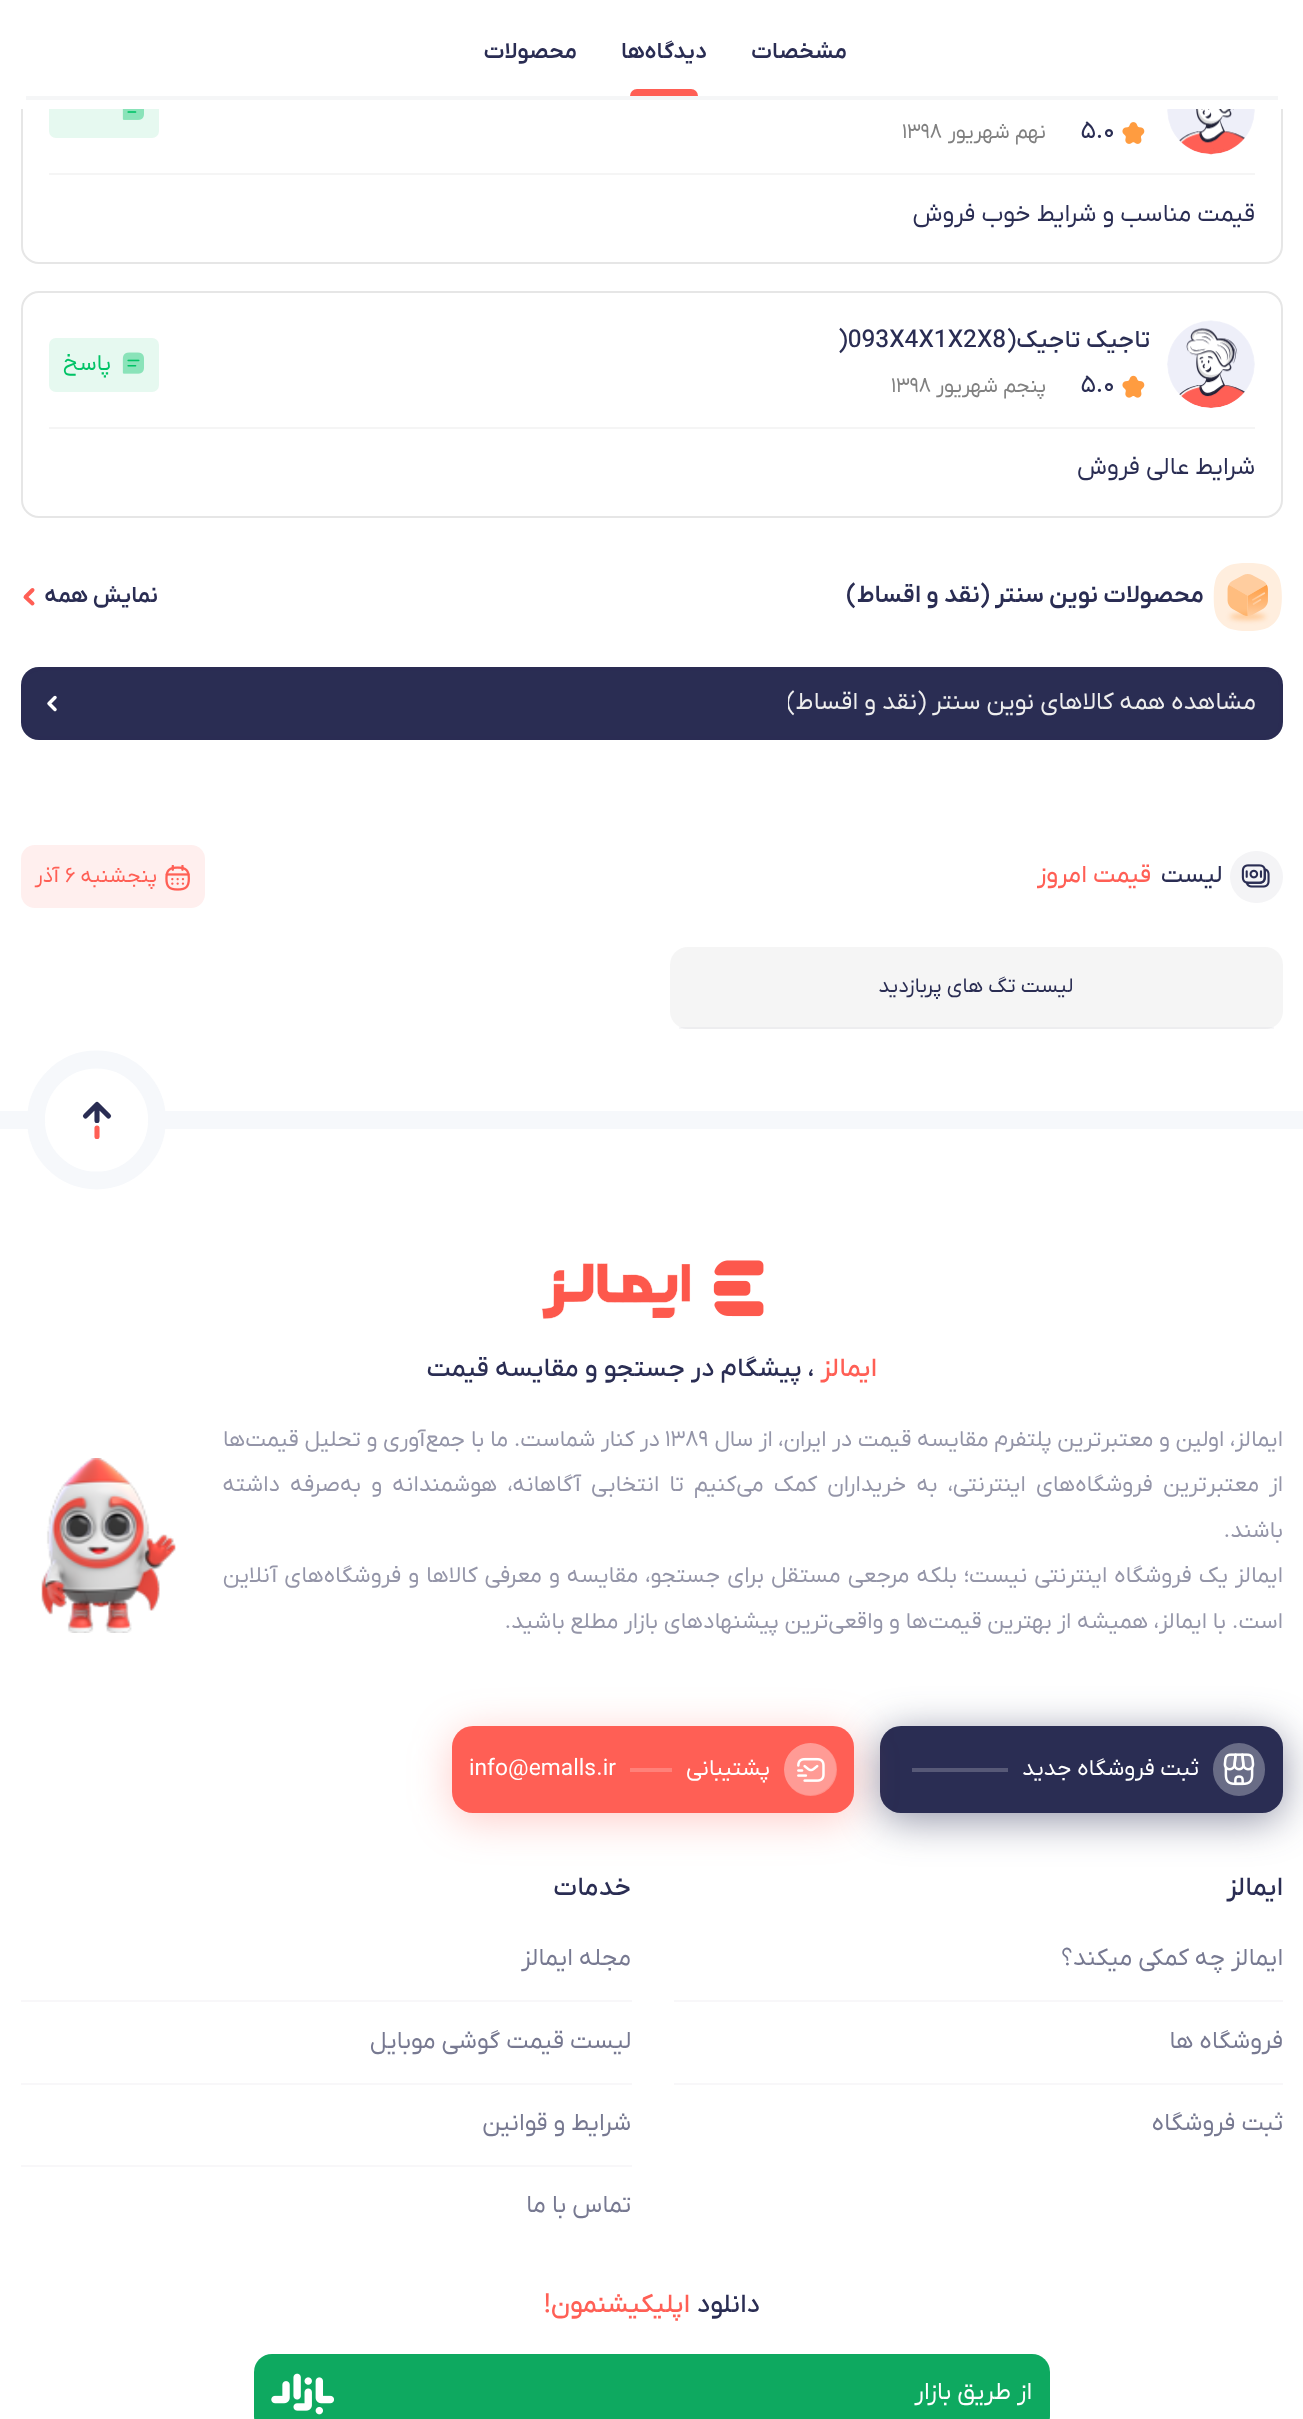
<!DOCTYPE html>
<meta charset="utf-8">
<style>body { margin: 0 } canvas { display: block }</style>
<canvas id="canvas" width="1303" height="2419"></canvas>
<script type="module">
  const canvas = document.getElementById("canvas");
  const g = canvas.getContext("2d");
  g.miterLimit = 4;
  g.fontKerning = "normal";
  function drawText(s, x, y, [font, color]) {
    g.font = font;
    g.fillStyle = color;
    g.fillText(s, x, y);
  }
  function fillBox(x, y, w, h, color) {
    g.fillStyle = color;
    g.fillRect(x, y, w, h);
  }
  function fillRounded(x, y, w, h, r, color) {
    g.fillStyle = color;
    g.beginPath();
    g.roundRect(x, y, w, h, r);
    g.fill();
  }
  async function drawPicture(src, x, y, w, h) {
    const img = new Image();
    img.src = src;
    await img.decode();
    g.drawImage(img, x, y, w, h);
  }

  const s1 = ["600 22.75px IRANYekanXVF", "#2A2D53"];
  const s2 = ["24.5px IRANYekanXVF", "#2A2D53"];
  const s3 = ["21px 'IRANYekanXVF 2'", "#808080"];
  const s4 = ["24.5px 'IRANYekanXVF 2'", "#2A2D53"];
  const s5 = ["500 24.5px IRANYekanXVF", "#2A2D53"];
  const s6 = ["22.75px 'IRANYekanXVF 2'", "#00C366"];
  const s7 = ["600 24.5px IRANYekanXVF", "#2A2D53"];
  const s8 = ["24.5px 'IRANYekanXVF 2'", "#EEEEEE"];
  const s9 = ["24.5px IRANYekanXVF", "#FF5F55"];
  const s10 = ["21px 'IRANYekanXVF 2'", "#FF5F55"];
  const s11 = ["21px 'IRANYekanXVF 2'", "#2A2D53"];
  const s12 = ["500 26.25px IRANYekanXVF", "#FF5F55"];
  const s13 = ["500 26.25px IRANYekanXVF", "#2A2D53"];
  const s14 = ["22.75px 'IRANYekanXVF 2'", "#9495A8"];
  const s15 = ["22.75px 'IRANYekanXVF 2'", "#FFFFFF"];
  const s16 = ["24.5px 'IRANYekanXVF 2'", "#777991"];
  const s17 = ["24.5px 'IRANYekanXVF 2'", "#FFFFFF"];

  fillBox(0, 0, 1303, 2419, "#FFFFFF");
  g.beginPath();
  g.roundRect(22, 38, 1260, 225, 17);
  g.strokeStyle = "#E6E6E6";
  g.lineWidth = 2;
  g.stroke();
  fillRounded(49, 84, 110, 54, 7, "#E6F9F0");
  fillBox(21, 37, 1262, 72, "#FFFFFF");
  fillBox(26, 96, 1252, 4, "#F5F6F7");
  g.direction = "rtl";
  drawText("مشخصات", 847, 58, s1);
  drawText("دیدگاه‌ها", 707, 58, s1);
  g.fillStyle = "#FF5F55";
  g.beginPath();
  g.roundRect(630, 89, 68, 7, [7, 7, 0, 0]);
  g.fill();
  drawText("محصولات", 577, 58, s1);
  fillBox(49, 173, 1206, 2, "#F5F5F5");
  await drawPicture("pic1.png", 1167, 109, 88, 46);
  await drawPicture("pic2.png", 1122, 122, 23, 22);
  g.direction = "ltr";
  drawText("۵.۰", 1081, 138, s2);
  g.direction = "rtl";
  drawText("نهم شهریور", 1046, 138, s3);
  g.direction = "ltr";
  drawText("۱۳۹۸", 902, 138, s3);
  await drawPicture("pic3.png", 122, 109, 22, 11);
  g.direction = "rtl";
  drawText("قیمت مناسب و شرایط خوب فروش", 1255, 221, s4);
  g.beginPath();
  g.roundRect(22, 292, 1260, 225, 17);
  g.stroke();
  fillBox(49, 427, 1206, 2, "#F5F5F5");
  await drawPicture("pic4.png", 1167, 320, 88, 88);
  drawText("تاجیک تاجیک(", 1150, 347, s5);
  g.direction = "ltr";
  drawText(")093X4X1X2X8", 838, 347, s5);
  await drawPicture("pic5.png", 1122, 375, 23, 23);
  drawText("۵.۰", 1081, 392, s2);
  g.direction = "rtl";
  drawText("پنجم شهریور", 1046, 392, s3);
  g.direction = "ltr";
  drawText("۱۳۹۸", 891, 392, s3);
  fillRounded(49, 338, 110, 54, 7, "#E6F9F0");
  await drawPicture("pic6.png", 122, 352, 22, 22);
  g.direction = "rtl";
  drawText("پاسخ", 111, 370, s6);
  drawText("شرایط عالی فروش", 1255, 474, s4);
  await drawPicture("pic7.png", 1213, 563, 69, 68);
  drawText("محصولات نوین سنتر (نقد و اقساط)", 1204, 602, s7);
  drawText("نمایش همه", 158, 602, s1);
  g.beginPath();
  g.moveTo(32.5, 603.5);
  g.lineTo(25.5, 597);
  g.lineTo(32.5, 590);
  g.strokeStyle = "#FF5F55";
  g.lineWidth = 4;
  g.lineCap = "round";
  g.lineJoin = "round";
  g.stroke();
  fillRounded(21, 667, 1262, 73, 18, "#2A2D53");
  g.beginPath();
  g.roundRect(23, 669, 1258, 69, 16);
  g.strokeStyle = "rgba(42, 45, 83, 0.07)";
  g.lineJoin = "miter";
  g.stroke();
  g.save();
  g.beginPath();
  g.rect(788, 681, 469, 45);
  g.clip();
  drawText("مشاهده‌ همه کالاهای نوین سنتر (نقد و اقساط)", 1256, 709, s8);
  g.restore();
  g.beginPath();
  g.moveTo(55, 709.5);
  g.lineTo(49, 703.5);
  g.lineTo(55, 697.5);
  g.strokeStyle = "#FFFFFF";
  g.lineWidth = 3.5;
  g.lineJoin = "round";
  g.stroke();
  fillRounded(1230, 851, 53, 52, 26, "#F4F4F6");
  await drawPicture("pic8.png", 1241, 864, 29, 24);
  drawText("لیست", 1222, 882, s2);
  drawText("قیمت امروز", 1151, 882, s9);
  fillRounded(21, 845, 184, 63, 14, "#FFEFEE");
  await drawPicture("pic9.png", 165, 865, 25, 26);
  drawText("پنجشنبه", 157, 882, s10);
  g.direction = "ltr";
  drawText("۶", 65, 882, s10);
  g.direction = "rtl";
  drawText("آذر", 59, 882, s10);
  fillRounded(670, 947, 613, 82, 18, "#F5F5F5");
  fillBox(679, 1027, 595, 2, "rgba(10, 0, 71, 0.03)");
  drawText("لیست تگ های پربازدید", 1073, 992, s11);
  fillBox(0, 1111, 1303, 18, "#F6F8FB");
  g.fillStyle = "#FFFFFF";
  g.beginPath();
  g.arc(96.5, 1120, 60.5, 0, Math.PI * 2);
  g.fill();
  g.strokeStyle = "#F6F8FB";
  g.lineWidth = 17.8;
  g.stroke();
  g.beginPath();
  g.moveTo(108.5, 1116);
  g.lineTo(97, 1104.5);
  g.lineTo(85.5, 1116);
  g.moveTo(97, 1120.5);
  g.lineTo(97, 1105);
  g.strokeStyle = "#2A2D53";
  g.lineWidth = 5.1;
  g.stroke();
  g.beginPath();
  g.moveTo(97, 1136.5);
  g.lineTo(97, 1128);
  g.strokeStyle = "#FF5F55";
  g.stroke();
  await drawPicture("pic10.png", 541, 1260, 223, 59);
  drawText("ایمالز", 877, 1376, s12);
  drawText("، پیشگام در جستجو و مقایسه قیمت", 814, 1376, s13);
  drawText("ایمالز، اولین و معتبرترین پلتفرم مقایسه قیمت در ایران، از سال", 1283, 1446, s14);
  g.direction = "ltr";
  drawText("۱۳۸۹", 665, 1446, s14);
  g.direction = "rtl";
  drawText("در کنار شماست. ما با جمع‌آوری و تحلیل قیمت‌ها", 660, 1446, s14);
  g.wordSpacing = "4.5px";
  drawText("از معتبرترین فروشگاه‌های اینترنتی، به خریداران کمک می‌کنیم تا انتخابی آگاهانه، هوشمندانه و به‌صرفه داشته", 1283, 1491, s14);
  g.wordSpacing = "0px";
  drawText("باشند.", 1283, 1537, s14);
  g.wordSpacing = "1.4px";
  drawText("ایمالز یک فروشگاه اینترنتی نیست؛ بلکه مرجعی مستقل برای جستجو، مقایسه و معرفی کالاها و فروشگاه‌های آنلاین", 1283, 1582, s14);
  g.wordSpacing = "0px";
  drawText("است. با ایمالز، همیشه از بهترین قیمت‌ها و واقعی‌ترین پیشنهادهای بازار مطلع باشید.", 1283, 1628, s14);
  await drawPicture("pic11.png", 41, 1458, 135, 175);
  g.fillStyle = "rgba(42, 45, 83, 0.51)";
  g.filter = "blur(21px)";
  g.beginPath();
  g.roundRect(880, 1733, 403, 87, 21);
  g.fill();
  g.filter = "none";
  fillRounded(880, 1726, 403, 87, 21, "#2A2D53");
  fillRounded(1213, 1743, 52, 53, 26, "#696C86");
  await drawPicture("pic12.png", 1223, 1753, 32, 33);
  drawText("ثبت فروشگاه جدید", 1199, 1775, s15);
  fillBox(912, 1768, 96, 4, "#575977");
  g.fillStyle = "rgba(255, 95, 85, 0.32)";
  g.filter = "blur(21px)";
  g.beginPath();
  g.roundRect(452, 1733, 402, 87, 21);
  g.fill();
  g.filter = "none";
  fillRounded(452, 1726, 402, 87, 21, "#FF5F55");
  g.fillStyle = "#FF8F88";
  g.beginPath();
  g.arc(810.5, 1769.5, 26.5, 0, Math.PI * 2);
  g.fill();
  await drawPicture("pic13.png", 784, 1743, 52, 52);
  drawText("پشتیبانی", 770, 1775, s15);
  fillBox(630, 1768, 42, 4, "#FF8179");
  g.direction = "ltr";
  drawText("info@emalls.ir", 469, 1775, s15);
  g.direction = "rtl";
  drawText("ایمالز", 1283, 1895, s13);
  fillBox(674, 2000, 609, 2, "#F8F7F9");
  drawText("ایمالز چه کمکی میکند؟", 1283, 1965, s16);
  fillBox(674, 2083, 609, 2, "#F8F7F9");
  drawText("فروشگاه ها", 1283, 2048, s16);
  drawText("ثبت فروشگاه", 1283, 2130, s16);
  drawText("خدمات", 631, 1895, s13);
  fillBox(21, 2000, 611, 2, "#F8F7F9");
  drawText("مجله ایمالز", 631, 1965, s16);
  fillBox(21, 2083, 611, 2, "#F8F7F9");
  drawText("لیست قیمت گوشی موبایل", 631, 2048, s16);
  fillBox(21, 2165, 611, 2, "#F8F7F9");
  drawText("شرایط و قوانین", 631, 2130, s16);
  drawText("تماس با ما", 631, 2212, s16);
  drawText("دانلود", 760, 2312, s13);
  drawText("اپلیکیشنمون!", 690, 2312, s12);
  fillRounded(254, 2354, 796, 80, 18, "#0EA960");
  drawText("از طریق بازار", 1032, 2399, s17);
  await drawPicture("pic14.png", 271, 2373, 63, 42);
</script>
